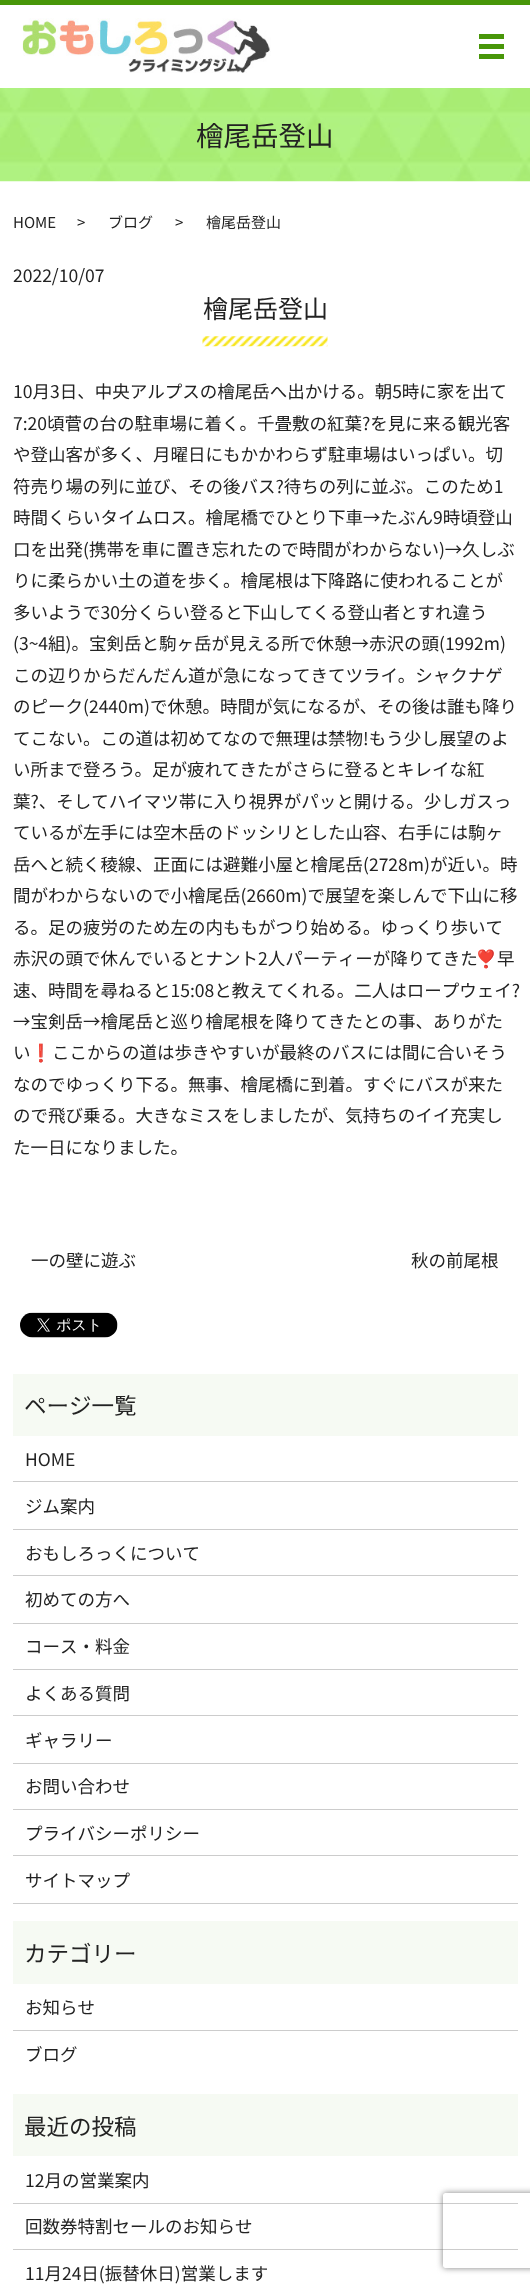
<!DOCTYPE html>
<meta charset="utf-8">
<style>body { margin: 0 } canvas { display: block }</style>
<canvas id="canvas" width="530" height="2285"></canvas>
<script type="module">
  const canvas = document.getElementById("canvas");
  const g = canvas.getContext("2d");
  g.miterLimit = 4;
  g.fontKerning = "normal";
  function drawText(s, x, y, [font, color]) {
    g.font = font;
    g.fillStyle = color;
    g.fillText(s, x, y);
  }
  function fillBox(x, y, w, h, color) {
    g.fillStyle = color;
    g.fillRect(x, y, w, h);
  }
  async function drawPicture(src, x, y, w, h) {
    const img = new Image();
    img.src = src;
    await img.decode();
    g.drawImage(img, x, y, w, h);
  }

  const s1 = ["27.5px Noto Sans JP", "#222222"];
  const s2 = ["15px Noto Sans JP", "#222222"];
  const s3 = ["17.5px Noto Sans JP", "#222222"];
  const s4 = ["25px Noto Sans JP", "#222222"];
  const s5 = ["17.5px Noto Color Emoji", "#222222"];
  const s6 = ["22.5px Noto Sans JP", "#222222"];

  fillBox(0, 0, 530, 2285, "#FFFFFF");
  fillBox(0, 0, 530, 5, "#489609");
  await drawPicture("pic1.png", 22, 18, 249, 55);
  fillBox(479, 34, 25, 5, "#489609");
  fillBox(479, 44, 25, 5, "#489609");
  fillBox(479, 54, 25, 5, "#489609");
  await drawPicture("pic2.png", 0, 88, 530, 94);
  drawText("檜尾岳登山", 196, 146, s1);
  drawText("HOME", 13, 228, s2);
  drawText(">", 77, 228, s2);
  drawText("ブログ", 108, 228, s2);
  drawText(">", 175, 228, s2);
  drawText("檜尾岳登山", 206, 228, s2);
  drawText("2022/10/07", 13, 282, s3);
  drawText("檜尾岳登山", 203, 318, s4);
  await drawPicture("pic3.png", 202, 336, 126, 11);
  drawText("10月3日、中央アルプスの檜尾岳へ出かける。朝5時に家を出て", 13, 398, s3);
  drawText("7:20頃菅の台の駐車場に着く。千畳敷の紅葉?を見に来る観光客", 13, 430, s3);
  drawText("や登山客が多く、月曜日にもかかわらず駐車場はいっぱい。切", 13, 461, s3);
  drawText("符売り場の列に並び、その後バス?待ちの列に並ぶ。このため1", 13, 493, s3);
  drawText("時間くらいタイムロス。檜尾橋でひとり下車→たぶん9時頃登山", 13, 524, s3);
  drawText("口を出発(携帯を車に置き忘れたので時間がわからない)→久しぶ", 13, 556, s3);
  drawText("りに柔らかい土の道を歩く。檜尾根は下降路に使われることが", 13, 587, s3);
  drawText("多いようで30分くらい登ると下山してくる登山者とすれ違う", 13, 619, s3);
  drawText("(3~4組)。宝剣岳と駒ヶ岳が見える所で休憩→赤沢の頭(1992m)", 13, 650, s3);
  drawText("この辺りからだんだん道が急になってきてツライ。シャクナゲ", 13, 682, s3);
  drawText("のピーク(2440m)で休憩。時間が気になるが、その後は誰も降り", 13, 713, s3);
  drawText("てこない。この道は初めてなので無理は禁物!もう少し展望のよ", 13, 745, s3);
  drawText("い所まで登ろう。足が疲れてきたがさらに登るとキレイな紅", 13, 776, s3);
  drawText("葉?、そしてハイマツ帯に入り視界がパッと開ける。少しガスっ", 13, 808, s3);
  drawText("ているが左手には空木岳のドッシリとした山容、右手には駒ヶ", 13, 839, s3);
  drawText("岳へと続く稜線、正面には避難小屋と檜尾岳(2728m)が近い。時", 13, 871, s3);
  drawText("間がわからないので小檜尾岳(2660m)で展望を楽しんで下山に移", 13, 902, s3);
  drawText("る。足の疲労のため左の内ももがつり始める。ゆっくり歩いて", 13, 934, s3);
  drawText("赤沢の頭で休んでいるとナント2人パーティーが降りてきた", 13, 965, s3);
  drawText("❣️", 475, 965, s5);
  drawText("早", 497, 965, s3);
  drawText("速、時間を尋ねると15:08と教えてくれる。二人はロープウェイ?", 13, 997, s3);
  drawText("→宝剣岳→檜尾岳と巡り檜尾根を降りてきたとの事、ありがた", 13, 1028, s3);
  drawText("い", 13, 1059, s3);
  drawText("❗️", 30, 1059, s5);
  drawText("ここからの道は歩きやすいが最終のバスには間に合いそう", 52, 1059, s3);
  drawText("なのでゆっくり下る。無事、檜尾橋に到着。すぐにバスが来た", 13, 1091, s3);
  drawText("ので飛び乗る。大きなミスをしましたが、気持ちのイイ充実し", 13, 1122, s3);
  drawText("た一日になりました。", 13, 1154, s3);
  drawText("一の壁に遊ぶ", 31, 1267, s3);
  drawText("秋の前尾根", 411, 1267, s3);
  await drawPicture("pic4.png", 20, 1312, 98, 26);
  fillBox(13, 1374, 505, 62, "#F6FAF3");
  drawText("ページ一覧", 24, 1414, s6);
  fillBox(13, 1481, 505, 1, "#CCCCCC");
  drawText("HOME", 25, 1466, s3);
  fillBox(13, 1529, 505, 1, "#CCCCCC");
  drawText("ジム案内", 25, 1513, s3);
  fillBox(13, 1575, 505, 1, "#CCCCCC");
  drawText("おもしろっくについて", 25, 1560, s3);
  fillBox(13, 1623, 505, 1, "#CCCCCC");
  drawText("初めての方へ", 25, 1606, s3);
  fillBox(13, 1669, 505, 1, "#CCCCCC");
  drawText("コース・料金", 25, 1653, s3);
  fillBox(13, 1715, 505, 1, "#CCCCCC");
  drawText("よくある質問", 25, 1700, s3);
  fillBox(13, 1763, 505, 1, "#CCCCCC");
  drawText("ギャラリー", 25, 1747, s3);
  fillBox(13, 1809, 505, 1, "#CCCCCC");
  drawText("お問い合わせ", 25, 1793, s3);
  fillBox(13, 1855, 505, 1, "#CCCCCC");
  drawText("プライバシーポリシー", 25, 1840, s3);
  fillBox(13, 1903, 505, 1, "#CCCCCC");
  drawText("サイトマップ", 25, 1887, s3);
  fillBox(13, 1921, 505, 63, "#F6FAF3");
  drawText("カテゴリー", 24, 1962, s6);
  fillBox(13, 2030, 505, 1, "#CCCCCC");
  drawText("お知らせ", 25, 2014, s3);
  drawText("ブログ", 25, 2061, s3);
  fillBox(13, 2094, 505, 62, "#F6FAF3");
  drawText("最近の投稿", 24, 2135, s6);
  fillBox(13, 2203, 505, 1, "#CCCCCC");
  drawText("12月の営業案内", 25, 2187, s3);
  fillBox(13, 2249, 505, 1, "#CCCCCC");
  drawText("回数券特割セールのお知らせ", 25, 2233, s3);
  drawText("11月24日(振替休日)営業します", 25, 2280, s3);
  g.save();
  g.beginPath();
  g.moveTo(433, 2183);
  g.lineTo(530, 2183);
  g.lineTo(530, 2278);
  g.lineTo(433, 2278);
  g.closePath();
  g.moveTo(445.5, 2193);
  g.lineTo(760.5, 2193);
  g.bezierCurveTo(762, 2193, 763, 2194, 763, 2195.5);
  g.lineTo(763, 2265.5);
  g.bezierCurveTo(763, 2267, 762, 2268, 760.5, 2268);
  g.lineTo(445.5, 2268);
  g.bezierCurveTo(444, 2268, 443, 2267, 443, 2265.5);
  g.lineTo(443, 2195.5);
  g.bezierCurveTo(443, 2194, 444, 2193, 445.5, 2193);
  g.closePath();
  g.clip("evenodd");
  g.fillStyle = "#808080";
  g.filter = "blur(3px)";
  g.beginPath();
  g.roundRect(443, 2193, 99, 75, 2.5);
  g.fill();
  g.filter = "none";
  g.restore();
</script>
